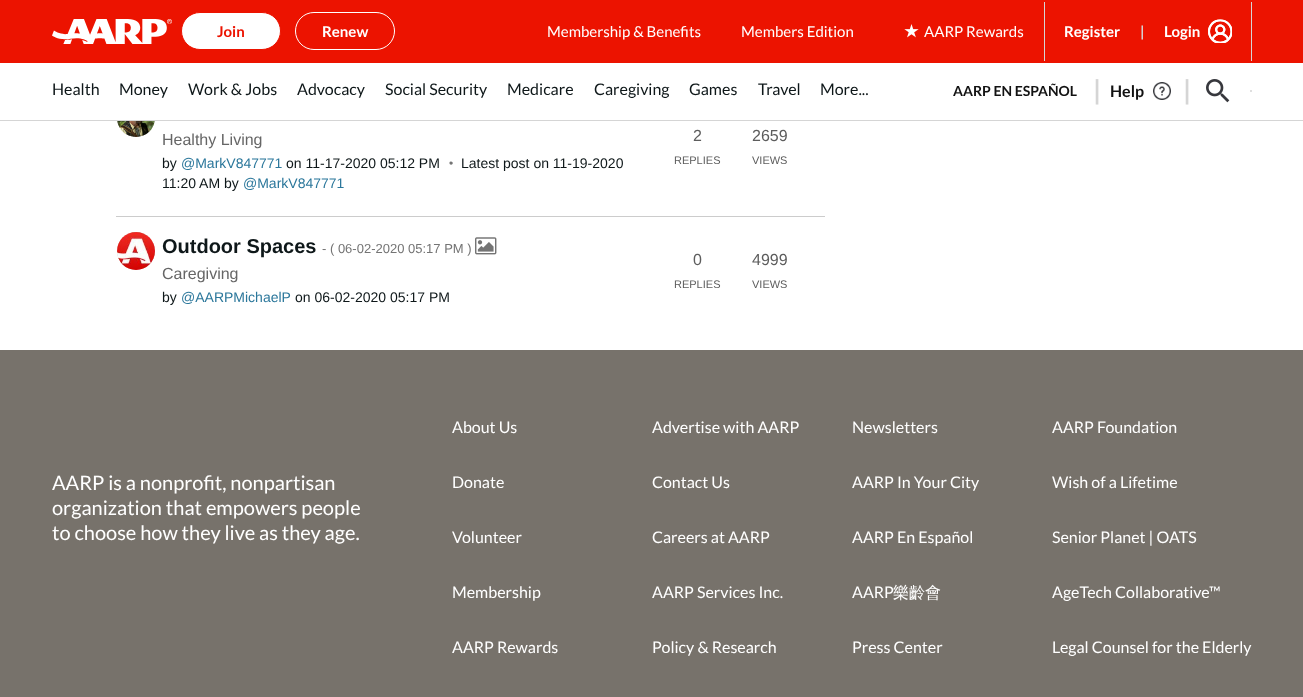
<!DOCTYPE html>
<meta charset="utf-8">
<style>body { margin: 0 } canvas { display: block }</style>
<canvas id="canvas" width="1303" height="697"></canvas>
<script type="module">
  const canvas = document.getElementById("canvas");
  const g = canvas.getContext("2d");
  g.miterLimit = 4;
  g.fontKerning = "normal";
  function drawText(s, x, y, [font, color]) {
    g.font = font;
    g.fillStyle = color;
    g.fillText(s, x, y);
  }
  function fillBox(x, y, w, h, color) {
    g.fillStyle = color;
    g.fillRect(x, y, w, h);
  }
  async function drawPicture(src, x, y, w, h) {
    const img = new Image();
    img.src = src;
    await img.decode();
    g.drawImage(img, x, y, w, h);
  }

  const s1 = ["bold 15px Lato", "#EC1300"];
  const s2 = ["bold 15px Lato", "#FFFFFF"];
  const s3 = ["15px Lato", "#FFFFFF"];
  const s4 = ["bold 15px Lato", "#D5D5D5"];
  const s5 = ["16px Lato", "#0E1719"];
  const s6 = ["bold 14px Lato", "#121212"];
  const s7 = ["bold 27px Lato", "#D5D5D5"];
  const s8 = ["bold 16px Lato", "#121212"];
  const s9 = ["16px Liberation Sans", "#666666"];
  const s10 = ["14px Liberation Sans", "#0E1719"];
  const s11 = ["14px Liberation Sans", "#2B779B"];
  const s12 = ["12px Liberation Sans", "#747474"];
  const s13 = ["16px Liberation Sans", "#5D5D5D"];
  const s14 = ["11px Liberation Sans", "#5D5D5D"];
  const s15 = ["bold 20px Liberation Sans", "#0E1719"];
  const s16 = ["13px Liberation Sans", "#747474"];
  const s17 = ["20px Lato", "#FFFFFF"];
  const s18 = ["16px Lato", "#FFFFFF"];
  const s19 = ["500 16px WenQuanYi Zen Hei", "#FFFFFF"];

  fillBox(0, 0, 1303, 697, "#FFFFFF");
  fillBox(0, 0, 1303, 63, "#EC1300");
  await drawPicture("pic1.png", 52, 19, 120, 25);
  g.fillStyle = "#FFFFFF";
  g.beginPath();
  g.roundRect(181.5, 12.5, 99, 37, 18.5);
  g.fill();
  g.strokeStyle = "#EC1300";
  g.stroke();
  drawText("Join", 217, 37, s1);
  g.beginPath();
  g.roundRect(295.5, 12.5, 99, 37, 18.5);
  g.strokeStyle = "#FFFFFF";
  g.stroke();
  drawText("Renew", 322, 37, s2);
  drawText("Membership & Benefits", 547, 37, s3);
  drawText("Members Edition", 741, 37, s3);
  fillBox(1044, 2, 1, 59, "#D5D5D5");
  await drawPicture("pic2.png", 904, 24, 15, 14);
  drawText("AARP Rewards", 924, 37, s3);
  drawText("Register", 1064, 37, s2);
  drawText("|", 1140, 37, s4);
  fillBox(1251, 2, 1, 59, "#D5D5D5");
  drawText("Login", 1164, 37, s2);
  await drawPicture("pic3.png", 1208, 19, 24, 24);
  g.fillStyle = "#CCCCCC";
  g.filter = "blur(0.5px)";
  g.beginPath();
  g.roundRect(117, 99, 38, 38, 19);
  g.fill();
  g.filter = "none";
  fillBox(116, 98, 40, 22, "#FFFFFF");
  fillBox(0, 120, 1303, 1, "#D5D5D5");
  drawText("Health", 52, 95, s5);
  drawText("Money", 119, 95, s5);
  drawText("Work & Jobs", 188, 95, s5);
  drawText("Advocacy", 297, 95, s5);
  drawText("Social Security", 385, 95, s5);
  drawText("Medicare", 507, 95, s5);
  drawText("Caregiving", 594, 95, s5);
  drawText("Games", 689, 95, s5);
  drawText("Travel", 758, 95, s5);
  drawText("More...", 820, 95, s5);
  drawText("AARP EN ESPAÑOL", 953, 96, s6);
  g.letterSpacing = "-3px";
  drawText("|", 1093, 100, s7);
  g.letterSpacing = "0px";
  drawText("Help", 1110, 97, s8);
  await drawPicture("pic4.png", 1153, 82, 18, 18);
  g.letterSpacing = "-3px";
  drawText("|", 1183, 100, s7);
  await drawPicture("pic5.png", 1206, 79, 24, 24);
  fillBox(1250, 90, 2, 2, "#DFDFDF");
  await drawPicture("pic6.png", 117, 121, 38, 16);
  g.letterSpacing = "0px";
  drawText("Healthy Living", 162, 145, s9);
  drawText("by", 162, 168, s10);
  drawText("@MarkV847771", 181, 168, s11);
  drawText("on 11-17-2020 05:12 PM", 286, 168, s10);
  drawText("•", 449, 167, s12);
  drawText("Latest post on 11-19-2020", 461, 168, s10);
  drawText("11:20 AM by", 162, 188, s10);
  drawText("@MarkV847771", 243, 188, s11);
  drawText("2", 693, 141, s13);
  drawText("REPLIES", 674, 164, s14);
  drawText("2659", 752, 141, s13);
  drawText("VIEWS", 752, 164, s14);
  fillBox(116, 216, 709, 1, "#CCCCCC");
  g.filter = "blur(0.5px)";
  g.beginPath();
  g.roundRect(117, 232, 38, 38, 19);
  g.fill();
  g.filter = "none";
  await drawPicture("pic7.png", 117, 232, 38, 38);
  drawText("Outdoor Spaces", 162, 253, s15);
  drawText("- ( 06-02-2020 05:17 PM )", 322, 253, s16);
  await drawPicture("pic8.png", 475, 237, 22, 18);
  drawText("Caregiving", 162, 279, s9);
  drawText("by", 162, 302, s10);
  drawText("@AARPMichaelP", 181, 302, s11);
  drawText("on 06-02-2020 05:17 PM", 295, 302, s10);
  drawText("0", 693, 265, s13);
  drawText("REPLIES", 674, 288, s14);
  drawText("4999", 752, 265, s13);
  drawText("VIEWS", 752, 288, s14);
  fillBox(0, 350, 1303, 347, "#77726B");
  drawText("AARP is a nonprofit, nonpartisan", 52, 490, s17);
  drawText("organization that empowers people", 52, 515, s17);
  drawText("to choose how they live as they age.", 52, 540, s17);
  drawText("About Us", 452, 433, s18);
  drawText("Donate", 452, 488, s18);
  drawText("Volunteer", 452, 543, s18);
  drawText("Membership", 452, 598, s18);
  drawText("AARP Rewards", 452, 653, s18);
  drawText("Advertise with AARP", 652, 433, s18);
  drawText("Contact Us", 652, 488, s18);
  drawText("Careers at AARP", 652, 543, s18);
  drawText("AARP Services Inc.", 652, 598, s18);
  drawText("Policy & Research", 652, 653, s18);
  drawText("Newsletters", 852, 433, s18);
  drawText("AARP In Your City", 852, 488, s18);
  drawText("AARP En Español", 852, 543, s18);
  drawText("AARP", 852, 598, s18);
  drawText("樂齡會", 893, 598, s19);
  drawText("Press Center", 852, 653, s18);
  drawText("AARP Foundation", 1052, 433, s18);
  drawText("Wish of a Lifetime", 1052, 488, s18);
  drawText("Senior Planet | OATS", 1052, 543, s18);
  drawText("AgeTech Collaborative™", 1052, 598, s18);
  drawText("Legal Counsel for the Elderly", 1052, 653, s18);
</script>
